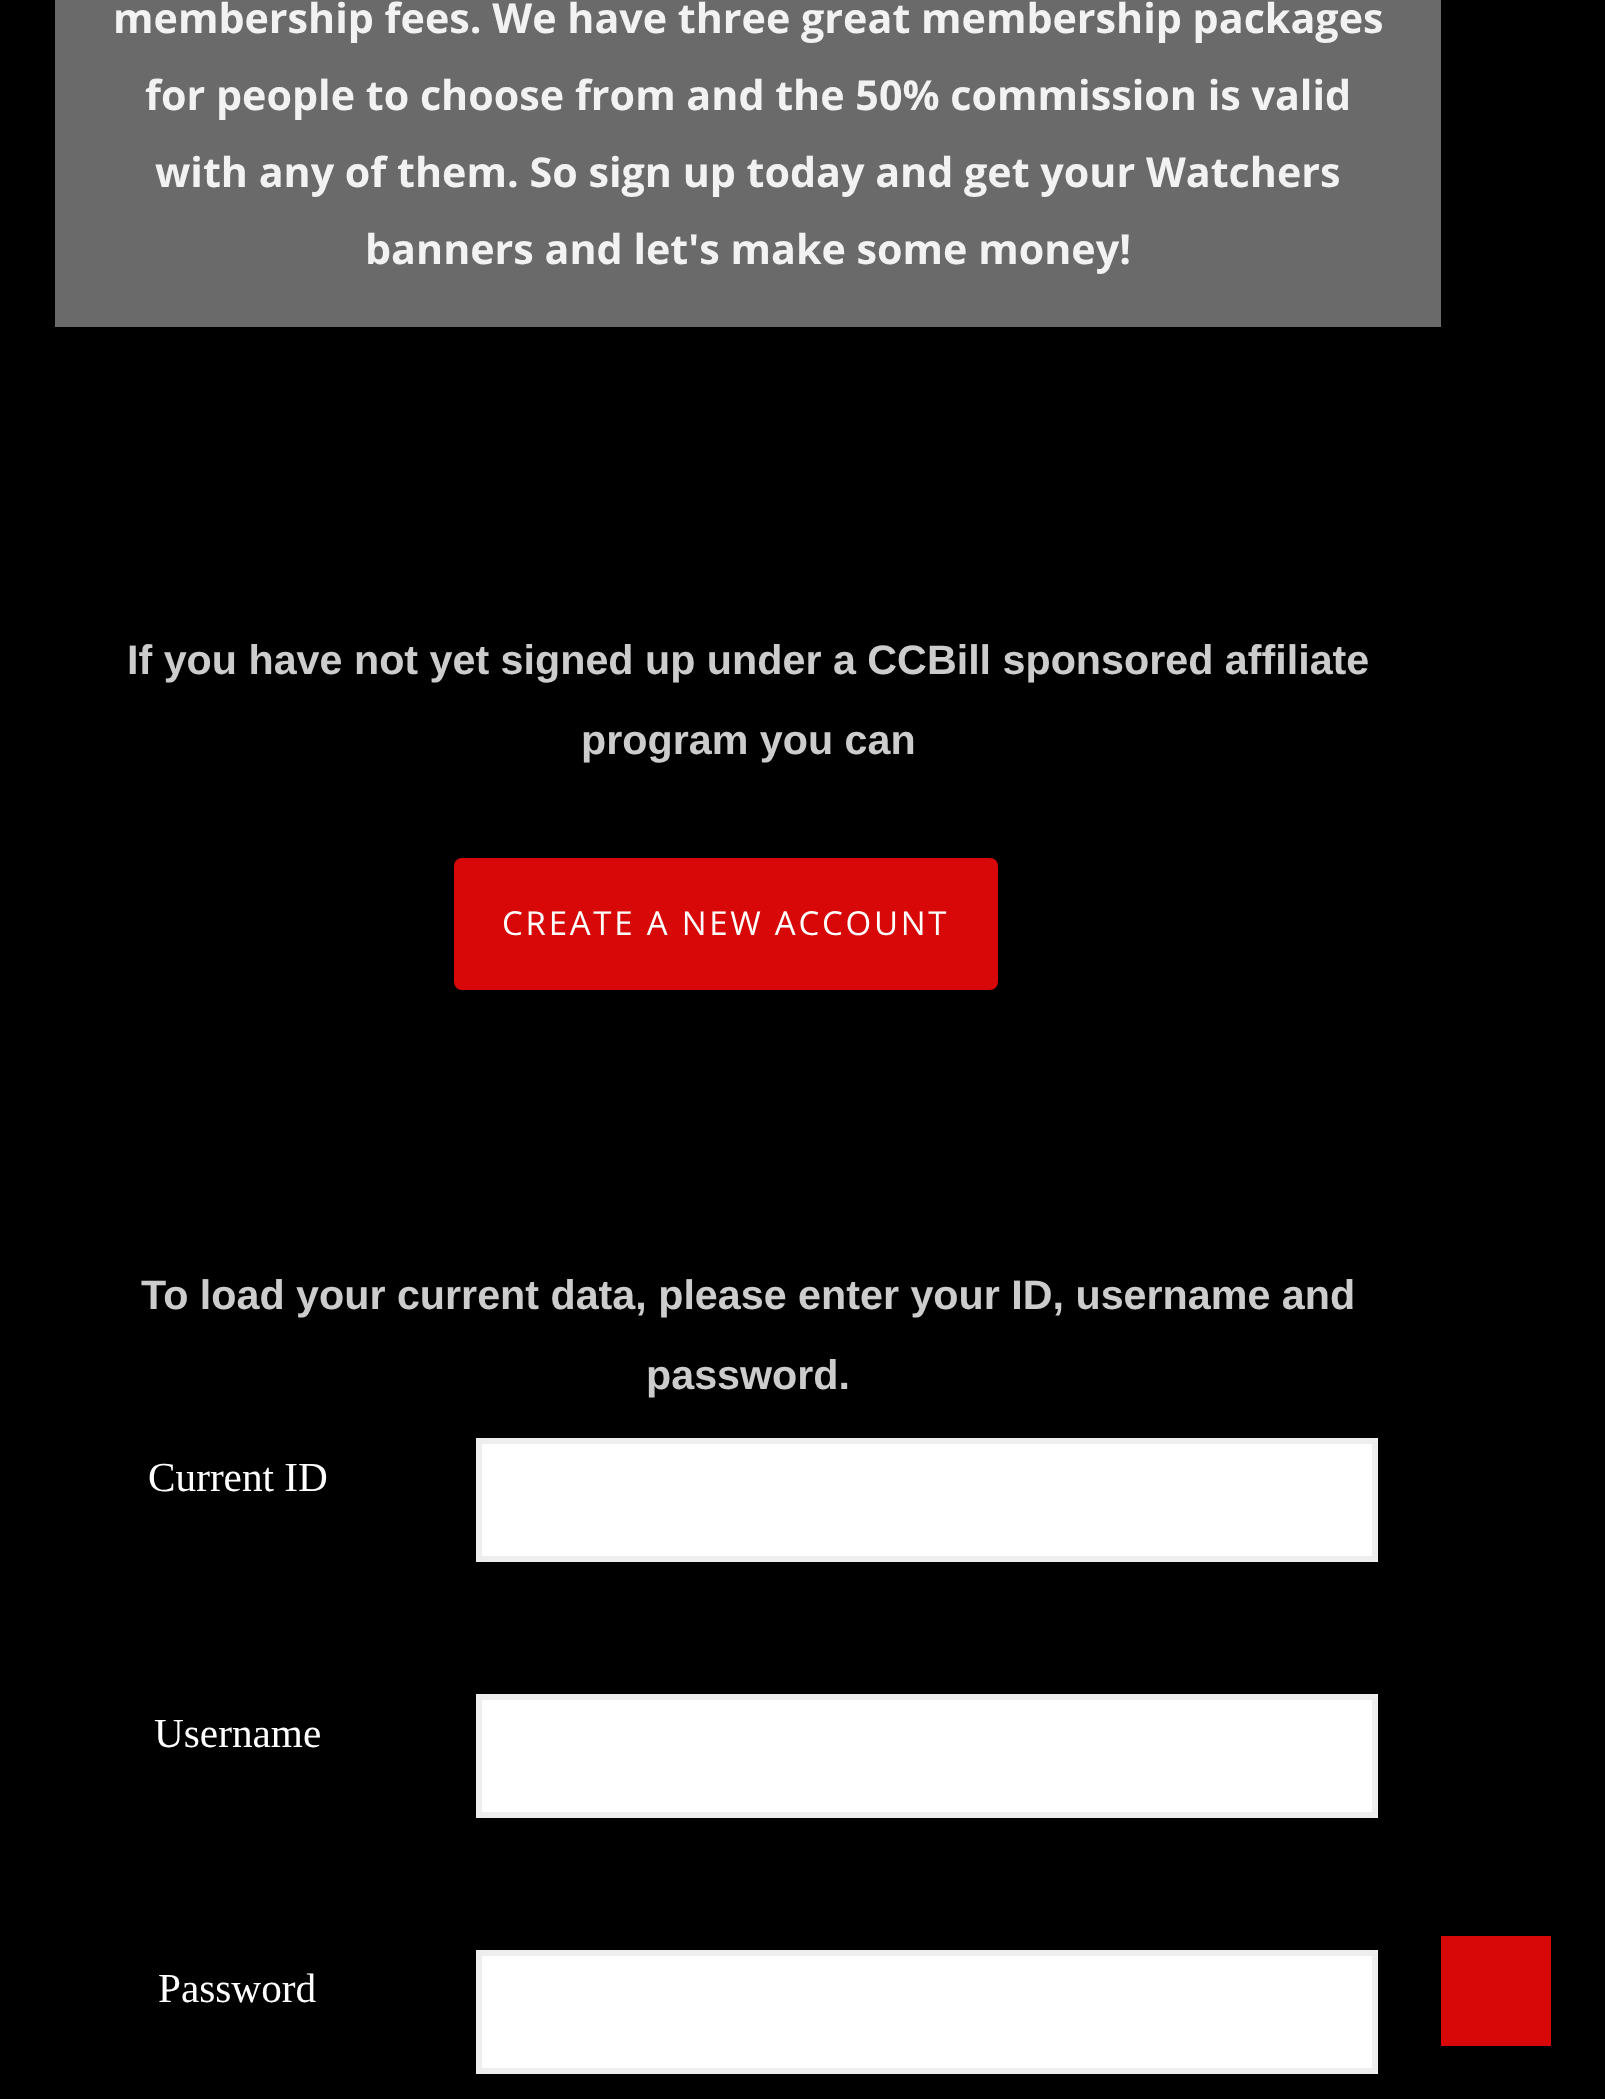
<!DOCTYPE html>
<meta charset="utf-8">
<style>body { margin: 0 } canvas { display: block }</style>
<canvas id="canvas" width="1605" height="2099"></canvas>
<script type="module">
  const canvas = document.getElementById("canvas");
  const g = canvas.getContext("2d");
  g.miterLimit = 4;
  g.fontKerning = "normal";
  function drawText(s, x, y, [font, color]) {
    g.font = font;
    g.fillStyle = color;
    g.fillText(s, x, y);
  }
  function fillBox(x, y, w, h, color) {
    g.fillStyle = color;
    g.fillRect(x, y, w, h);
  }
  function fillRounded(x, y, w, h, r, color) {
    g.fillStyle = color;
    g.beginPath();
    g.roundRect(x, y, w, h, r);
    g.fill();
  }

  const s1 = ["bold 41.25px Open Sans", "#F2F2F2"];
  const s2 = ["bold 41.25px Liberation Sans", "#CCCCCC"];
  const s3 = ["33px Open Sans", "#FFFFFF"];
  const s4 = ["41.25px Liberation Serif", "#FFFFFF"];

  fillBox(0, 0, 1605, 2099, "#000000");
  fillBox(55, 0, 1386, 327, "#6A6A6A");
  drawText("membership fees. We have three great membership packages", 113, 33, s1);
  drawText("for people to choose from and the 50% commission is valid", 145, 110, s1);
  drawText("with any of them. So sign up today and get your Watchers", 155, 187, s1);
  drawText("banners and let's make some money!", 365, 264, s1);
  drawText("If you have not yet signed up under a CCBill sponsored affiliate", 127, 674, s2);
  drawText("program you can", 581, 754, s2);
  fillRounded(454, 858, 544, 132, 8, "#D80808");
  g.letterSpacing = "2.75px";
  drawText("CREATE A NEW ACCOUNT", 502, 935, s3);
  g.letterSpacing = "0px";
  drawText("To load your current data, please enter your ID, username and", 141, 1309, s2);
  drawText("password.", 646, 1389, s2);
  drawText("Current ID", 148, 1491, s4);
  g.beginPath();
  g.rect(479, 1441, 896, 118);
  g.fill();
  g.strokeStyle = "#EEEEEE";
  g.lineWidth = 6;
  g.stroke();
  drawText("Username", 154, 1747, s4);
  g.beginPath();
  g.rect(479, 1697, 896, 118);
  g.fill();
  g.stroke();
  drawText("Password", 158, 2002, s4);
  g.beginPath();
  g.rect(479, 1953, 896, 118);
  g.fill();
  g.stroke();
  fillBox(1441, 1936, 110, 110, "#D80808");
</script>
